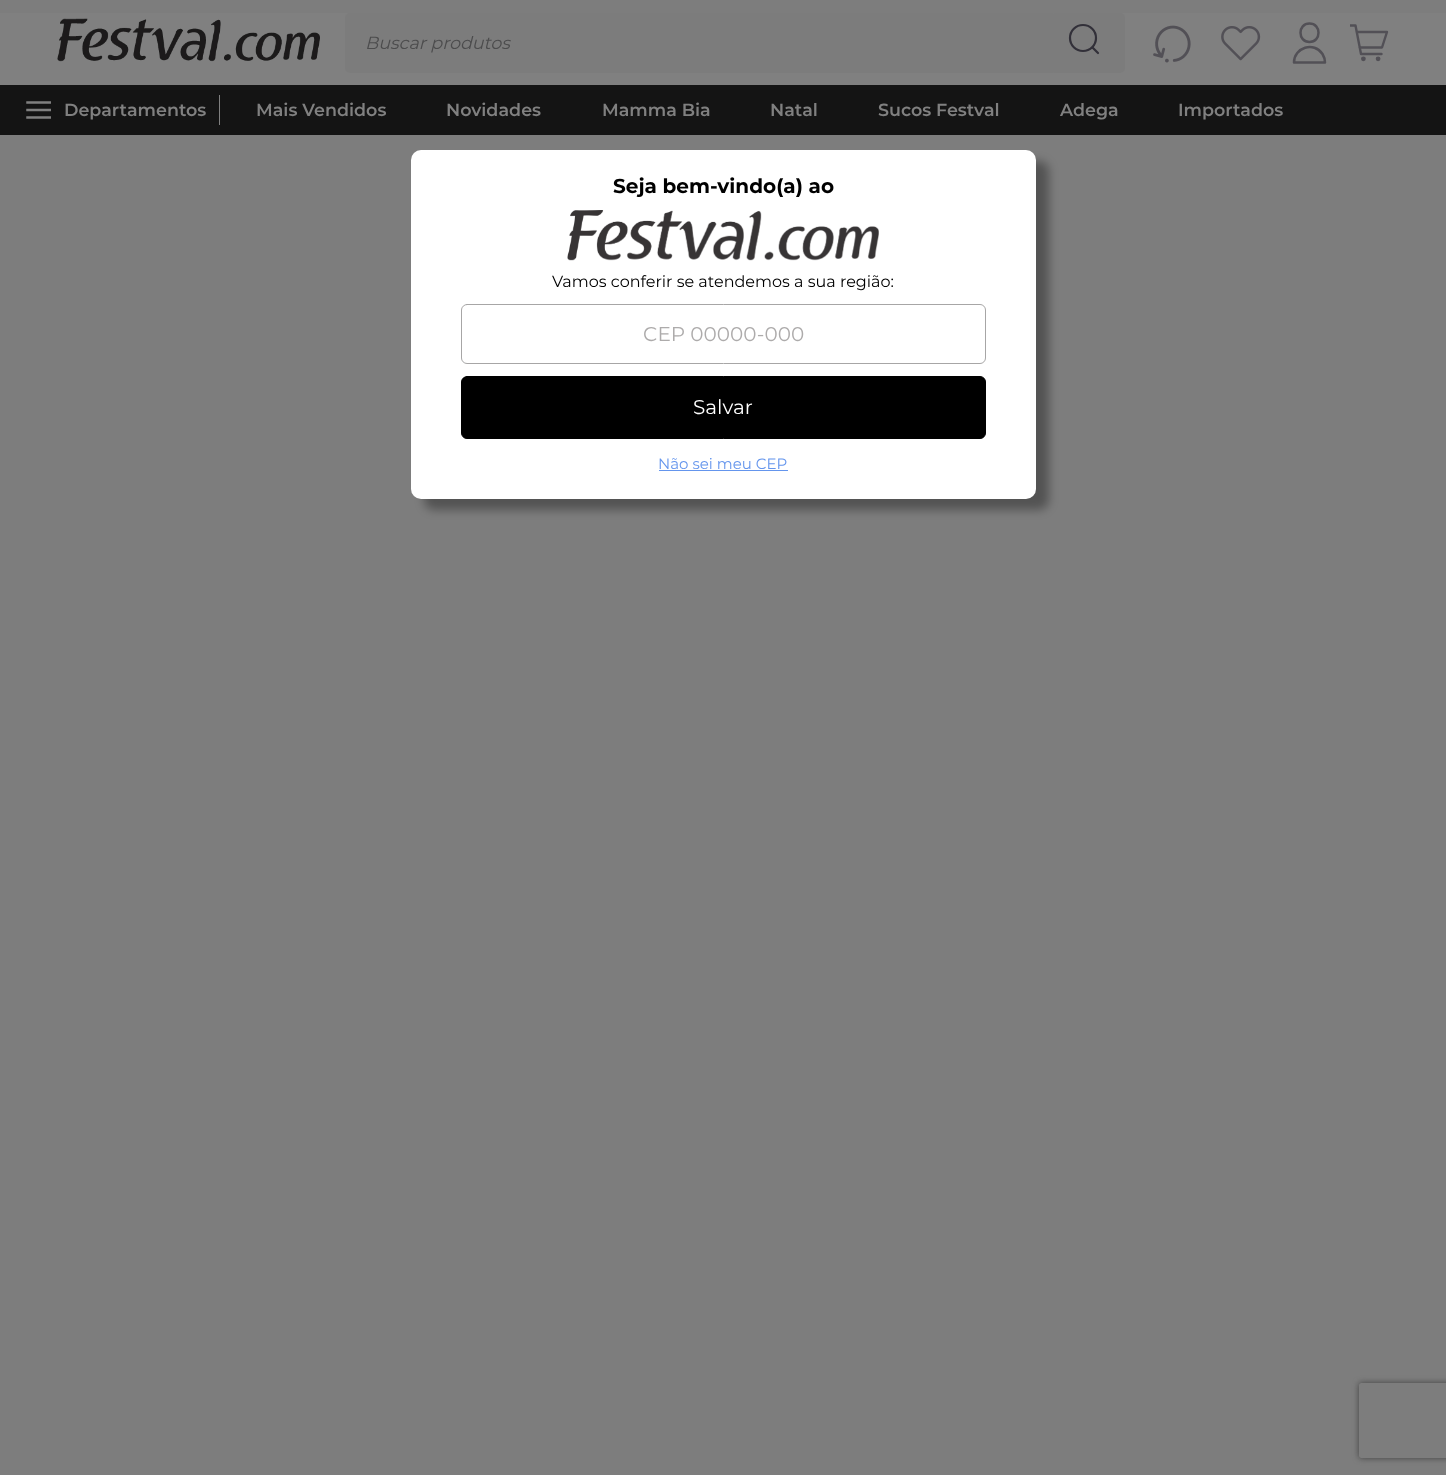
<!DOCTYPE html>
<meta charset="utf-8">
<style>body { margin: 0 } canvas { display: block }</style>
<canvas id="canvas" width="1446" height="1475"></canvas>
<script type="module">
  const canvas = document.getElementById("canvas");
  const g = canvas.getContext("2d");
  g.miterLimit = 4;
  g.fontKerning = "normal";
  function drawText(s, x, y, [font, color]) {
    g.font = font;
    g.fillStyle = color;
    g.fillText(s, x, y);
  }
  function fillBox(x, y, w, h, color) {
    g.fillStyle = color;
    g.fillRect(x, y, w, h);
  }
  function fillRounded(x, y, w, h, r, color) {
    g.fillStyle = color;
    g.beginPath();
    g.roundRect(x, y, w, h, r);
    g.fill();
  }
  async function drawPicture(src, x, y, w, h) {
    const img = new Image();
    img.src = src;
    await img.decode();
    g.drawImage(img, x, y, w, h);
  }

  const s1 = ["italic 17.5px Montserrat", "#4C4C4D"];
  const s2 = ["600 17.5px Montserrat", "#808080"];
  const s3 = ["bold 20px Montserrat", "#000000"];
  const s4 = ["16px Montserrat", "#000000"];
  const s5 = ["20px Montserrat", "#ADABAB"];
  const s6 = ["20px Montserrat", "#FFFFFF"];
  const s7 = ["15px Montserrat", "#6495ED"];

  fillBox(0, 0, 1446, 1475, "#7D7D7D");
  fillBox(0, 13, 1446, 72, "#808080");
  await drawPicture("pic1.png", 57, 18, 263, 44);
  g.fillStyle = "#7C7C7C";
  g.beginPath();
  g.roundRect(345, 13, 709, 60, [5, 1, 1, 5]);
  g.fill();
  drawText("Buscar produtos", 365, 49, s1);
  g.fillStyle = "#7C7C7C";
  g.beginPath();
  g.roundRect(1054, 13, 71, 60, [0, 5, 5, 0]);
  g.fill();
  g.beginPath();
  g.arc(1083, 38, 13, 0, Math.PI * 2);
  g.strokeStyle = "#323039";
  g.lineWidth = 2.2;
  g.stroke();
  g.beginPath();
  g.moveTo(1092.5, 47.5);
  g.lineTo(1098, 53);
  g.lineCap = "round";
  g.lineJoin = "round";
  g.stroke();
  await drawPicture("pic2.png", 1153, 25, 38, 38);
  await drawPicture("pic3.png", 1221, 26, 40, 35);
  g.beginPath();
  g.moveTo(1309.5, 42);
  g.bezierCurveTo(1321.5, 42, 1321.5, 23.5, 1309.5, 23.5);
  g.bezierCurveTo(1297.5, 23.5, 1297.5, 42, 1309.5, 42);
  g.closePath();
  g.moveTo(1325, 62.5);
  g.bezierCurveTo(1325, 59.5, 1324, 56.5, 1322.5, 54);
  g.bezierCurveTo(1314, 41, 1294, 47.5, 1294, 62.5);
  g.closePath();
  g.strokeStyle = "#525056";
  g.lineWidth = 2.5;
  g.stroke();
  g.save();
  g.beginPath();
  g.rect(1350, 24, 38, 37);
  g.clip();
  g.beginPath();
  g.moveTo(1350.5, 25.5);
  g.lineTo(1355.5, 25.5);
  g.lineTo(1361, 54);
  g.lineTo(1381.5, 54);
  g.lineWidth = 2.4;
  g.stroke();
  g.restore();
  g.beginPath();
  g.moveTo(1357, 32);
  g.lineTo(1387, 32);
  g.lineTo(1382, 47.5);
  g.lineTo(1360, 47.5);
  g.lineWidth = 2.4;
  g.stroke();
  g.fillStyle = "#525056";
  g.beginPath();
  g.arc(1363.4, 58.8, 1.6, 0, Math.PI * 2);
  g.fill();
  g.lineWidth = 1.6;
  g.stroke();
  g.beginPath();
  g.arc(1378.1, 58.8, 1.6, 0, Math.PI * 2);
  g.fill();
  g.stroke();
  fillBox(0, 85, 1446, 50, "#141414");
  await drawPicture("pic4.png", 26, 101, 25, 18);
  drawText("Departamentos", 64, 116, s2);
  fillBox(219, 95, 1, 30, "#808080");
  drawText("Mais Vendidos", 256, 116, s2);
  drawText("Novidades", 446, 116, s2);
  drawText("Mamma Bia", 602, 116, s2);
  drawText("Natal", 770, 116, s2);
  drawText("Sucos Festval", 878, 116, s2);
  drawText("Adega", 1060, 116, s2);
  drawText("Importados", 1178, 116, s2);
  g.fillStyle = "rgba(0, 0, 0, 0.33)";
  g.filter = "blur(5px)";
  g.beginPath();
  g.roundRect(424, 161, 625, 349, 10);
  g.fill();
  g.filter = "none";
  fillRounded(411, 150, 625, 349, 10, "#FFFFFF");
  drawText("Seja bem-vindo(a) ao", 613, 193, s3);
  await drawPicture("pic5.png", 567, 210, 312, 51);
  drawText("Vamos conferir se atendemos a sua região:", 552, 287, s4);
  g.beginPath();
  g.roundRect(461.5, 304.5, 524, 59, 5.5);
  g.strokeStyle = "#A7A6A6";
  g.lineWidth = 1;
  g.lineJoin = "miter";
  g.stroke();
  drawText("CEP 00000-000", 643, 341, s5);
  g.fillStyle = "#000000";
  g.beginPath();
  g.roundRect(461.5, 376.5, 524, 62, 5.5);
  g.fill();
  g.strokeStyle = "#000000";
  g.stroke();
  drawText("Salvar", 693, 414, s6);
  drawText("Não sei meu CEP", 658, 469, s7);
  fillBox(659, 470, 129, 1, "#6495ED");
  g.save();
  g.beginPath();
  g.moveTo(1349, 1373);
  g.lineTo(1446, 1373);
  g.lineTo(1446, 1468);
  g.lineTo(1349, 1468);
  g.closePath();
  g.moveTo(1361.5, 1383);
  g.lineTo(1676.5, 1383);
  g.bezierCurveTo(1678, 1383, 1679, 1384, 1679, 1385.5);
  g.lineTo(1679, 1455.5);
  g.bezierCurveTo(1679, 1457, 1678, 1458, 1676.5, 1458);
  g.lineTo(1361.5, 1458);
  g.bezierCurveTo(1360, 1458, 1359, 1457, 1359, 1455.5);
  g.lineTo(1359, 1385.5);
  g.bezierCurveTo(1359, 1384, 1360, 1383, 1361.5, 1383);
  g.closePath();
  g.clip("evenodd");
  g.fillStyle = "#404040";
  g.filter = "blur(3px)";
  g.beginPath();
  g.roundRect(1359, 1383, 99, 75, 2.5);
  g.fill();
  g.filter = "none";
  g.restore();
</script>
